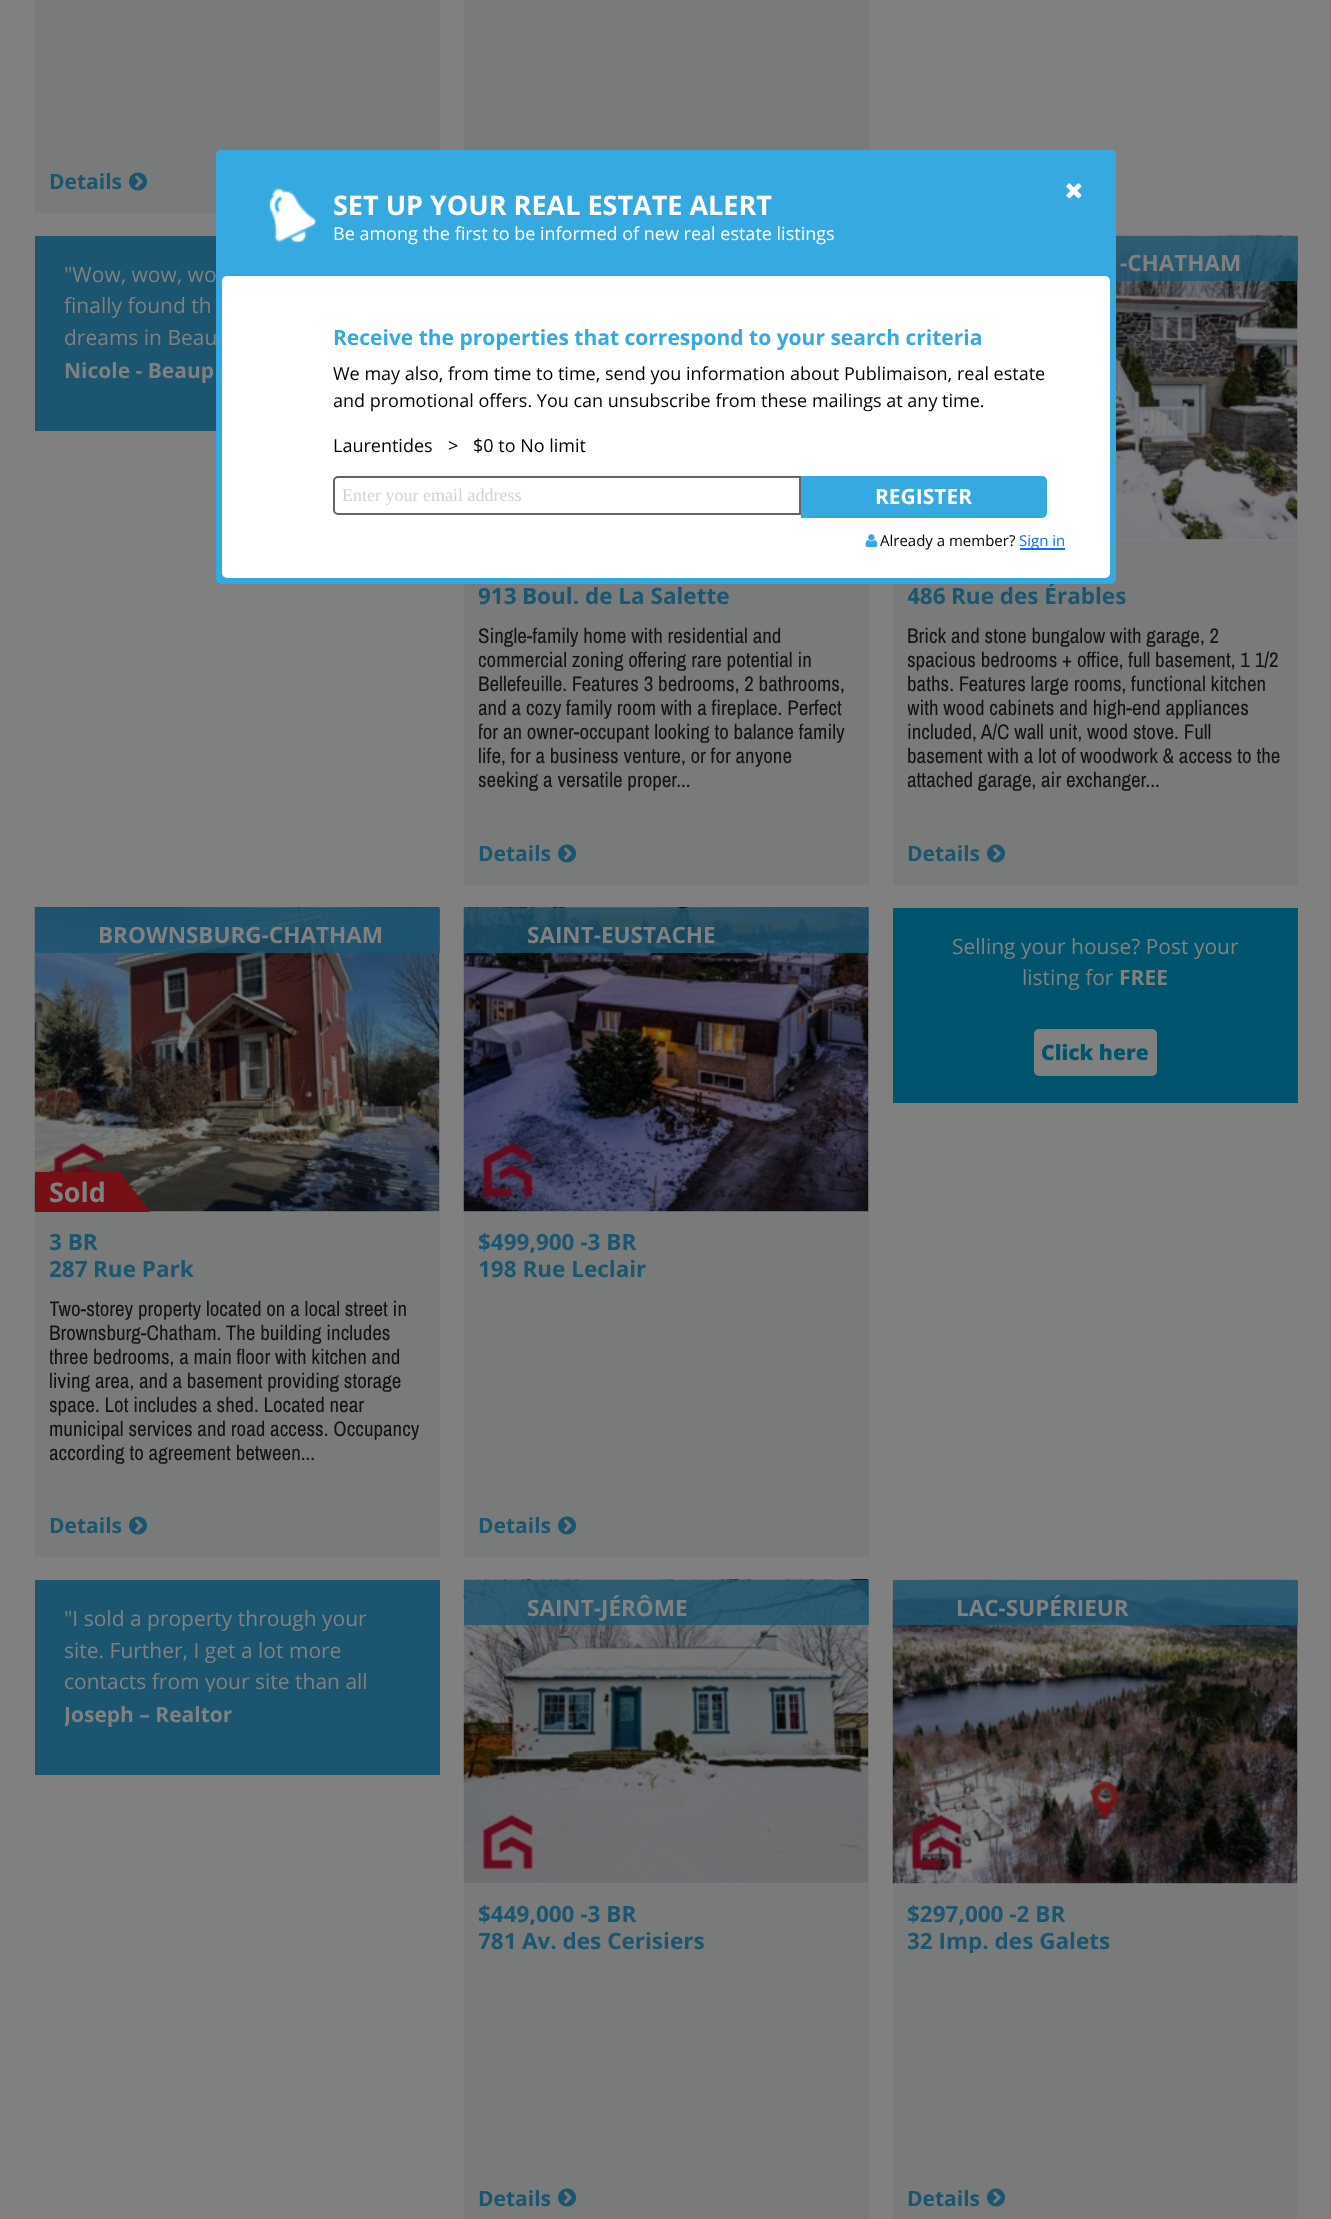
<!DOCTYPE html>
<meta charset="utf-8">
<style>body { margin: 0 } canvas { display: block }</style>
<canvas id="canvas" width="1331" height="2219"></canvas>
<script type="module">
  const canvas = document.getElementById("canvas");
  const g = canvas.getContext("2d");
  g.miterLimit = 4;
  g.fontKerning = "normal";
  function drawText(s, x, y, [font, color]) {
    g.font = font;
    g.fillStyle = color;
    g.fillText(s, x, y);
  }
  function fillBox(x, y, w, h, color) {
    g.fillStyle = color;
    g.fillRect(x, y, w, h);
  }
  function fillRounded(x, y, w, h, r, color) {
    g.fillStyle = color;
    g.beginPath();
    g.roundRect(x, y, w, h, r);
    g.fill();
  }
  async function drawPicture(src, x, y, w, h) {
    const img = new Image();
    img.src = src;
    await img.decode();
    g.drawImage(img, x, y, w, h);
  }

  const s1 = ["bold 21px Open Sans", "#1B5570"];
  const s2 = ["21px Open Sans", "#808080"];
  const s3 = ["bold 21px Open Sans", "#808080"];
  const s4 = ["bold 22.5px Open Sans", "#808080"];
  const s5 = ["bold 22.5px Open Sans", "#1B5570"];
  const s6 = ["21px Archivo Narrow", "#111315"];
  const s7 = ["bold 27px Open Sans", "#808080"];
  const s8 = ["800 21px Open Sans", "#00546D"];
  const s9 = ["bold 27px Open Sans", "#FFFFFF"];
  const s10 = ["18px Open Sans", "#FFFFFF"];
  const s11 = ["bold 21px Open Sans", "#36A9E0"];
  const s12 = ["18px Open Sans", "#000000"];
  const s13 = ["18px Liberation Serif", "#D1D3D4"];
  const s14 = ["bold 21px Open Sans", "#FFFFFF"];
  const s15 = ["15px Open Sans", "#000000"];
  const s16 = ["15px Open Sans", "#0D6EFD"];

  fillBox(0, 0, 1331, 2219, "#808080");
  fillBox(464, 0, 405, 150, "#797A7A");
  fillBox(35, 0, 405, 213, "#797A7A");
  drawText("Details", 49, 189, s1);
  await drawPicture("pic1.png", 129, 172, 18, 19);
  fillBox(35, 236, 181, 195, "#1B5570");
  drawText("\"Wow, wow, wo", 64, 282, s2);
  drawText("finally found th", 64, 313, s2);
  drawText("dreams in Beau", 64, 345, s2);
  drawText("Nicole - Beaup", 64, 378, s3);
  await drawPicture("pic2.png", 1116, 235, 182, 305);
  fillBox(1116, 236, 182, 45, "rgba(27, 85, 112, 0.8)");
  drawText("-CHATHAM", 1120, 271, s4);
  fillBox(893, 540, 405, 345, "#797A7A");
  g.save();
  g.beginPath();
  g.rect(908, 582, 375, 27);
  g.clip();
  drawText("486", 907, 604, s5);
  g.restore();
  drawText("Rue des Érables", 951, 604, s5);
  drawText("Brick and stone bungalow with garage, 2", 907, 643, s6);
  g.save();
  g.beginPath();
  g.rect(908, 624, 375, 218);
  g.clip();
  drawText("spacious bedrooms + office, full basement, 1 1/2", 907, 667, s6);
  g.restore();
  drawText("baths. Features large rooms, functional kitchen", 907, 691, s6);
  g.save();
  g.beginPath();
  g.rect(908, 624, 375, 218);
  g.clip();
  drawText("with wood cabinets and high-end appliances", 907, 715, s6);
  g.restore();
  drawText("included, A/C wall unit, wood stove. Full", 907, 739, s6);
  drawText("basement with a lot of woodwork & access to the", 907, 763, s6);
  g.save();
  g.beginPath();
  g.rect(908, 624, 375, 218);
  g.clip();
  drawText("attached garage, air exchanger...", 907, 787, s6);
  g.restore();
  drawText("Details", 907, 861, s1);
  await drawPicture("pic1.png", 987, 844, 18, 19);
  fillBox(464, 584, 405, 301, "#797A7A");
  g.save();
  g.beginPath();
  g.rect(479, 582, 375, 27);
  g.clip();
  drawText("913", 478, 604, s5);
  g.restore();
  drawText("Boul. de La Salette", 522, 604, s5);
  g.save();
  g.beginPath();
  g.rect(479, 624, 375, 218);
  g.clip();
  drawText("Single-family home with residential and", 478, 643, s6);
  drawText("commercial zoning offering rare potential in", 478, 667, s6);
  g.restore();
  drawText("Bellefeuille. Features 3 bedrooms, 2 bathrooms,", 478, 691, s6);
  g.save();
  g.beginPath();
  g.rect(479, 624, 375, 218);
  g.clip();
  drawText("and a cozy family room with a fireplace. Perfect", 478, 715, s6);
  drawText("for an owner-occupant looking to balance family", 478, 739, s6);
  drawText("life, for a business venture, or for anyone", 478, 763, s6);
  drawText("seeking a versatile proper...", 478, 787, s6);
  g.restore();
  drawText("Details", 478, 861, s1);
  await drawPicture("pic1.png", 558, 844, 18, 19);
  await drawPicture("pic3.png", 34, 907, 406, 305);
  fillBox(35, 908, 405, 45, "rgba(27, 85, 112, 0.8)");
  drawText("BROWNSBURG-CHATHAM", 98, 943, s4);
  fillBox(35, 1172, 85, 40, "#751017");
  drawText("Sold", 49, 1202, s7);
  g.fillStyle = "#751017";
  g.beginPath();
  g.moveTo(120, 1212);
  g.lineTo(120, 1172);
  g.lineTo(150, 1212);
  g.closePath();
  g.fill();
  fillBox(35, 1212, 405, 345, "#797A7A");
  drawText("3 BR", 49, 1250, s5);
  g.save();
  g.beginPath();
  g.rect(50, 1254, 375, 27);
  g.clip();
  drawText("287", 49, 1277, s5);
  g.restore();
  drawText("Rue Park", 93, 1277, s5);
  g.save();
  g.beginPath();
  g.rect(50, 1296, 375, 218);
  g.clip();
  drawText("Two-storey property located on a local street in", 49, 1316, s6);
  g.restore();
  drawText("Brownsburg-Chatham. The building includes", 49, 1340, s6);
  g.save();
  g.beginPath();
  g.rect(50, 1296, 375, 218);
  g.clip();
  drawText("three bedrooms, a main floor with kitchen and", 49, 1364, s6);
  drawText("living area, and a basement providing storage", 49, 1388, s6);
  drawText("space. Lot includes a shed. Located near", 49, 1412, s6);
  g.restore();
  drawText("municipal services and road access. Occupancy", 49, 1436, s6);
  g.save();
  g.beginPath();
  g.rect(50, 1296, 375, 218);
  g.clip();
  drawText("according to agreement between...", 49, 1460, s6);
  g.restore();
  drawText("Details", 49, 1533, s1);
  await drawPicture("pic1.png", 129, 1516, 18, 19);
  await drawPicture("pic4.png", 463, 907, 406, 305);
  fillBox(464, 908, 405, 45, "rgba(27, 85, 112, 0.8)");
  drawText("SAINT-EUSTACHE", 527, 943, s4);
  fillBox(464, 1212, 405, 345, "#797A7A");
  drawText("$499,900 -3 BR", 478, 1250, s5);
  drawText("198 Rue Leclair", 478, 1277, s5);
  drawText("Details", 478, 1533, s1);
  await drawPicture("pic1.png", 558, 1516, 18, 19);
  fillBox(893, 908, 405, 195, "#00546D");
  drawText("Selling your house? Post your", 952, 954, s2);
  drawText("listing for", 1022, 985, s2);
  drawText("FREE", 1119, 985, s3);
  fillRounded(1034, 1029, 123, 47, 5, "#808080");
  drawText("Click here", 1041, 1060, s8);
  fillBox(35, 1580, 405, 195, "#1B5570");
  drawText("\"I sold a property through your", 64, 1626, s2);
  g.save();
  g.beginPath();
  g.rect(65, 1602, 345, 90);
  g.clip();
  drawText("site. Further, I get a lot more", 64, 1658, s2);
  drawText("contacts from your site than all", 64, 1689, s2);
  g.restore();
  g.save();
  g.beginPath();
  g.rect(65, 1692, 345, 45);
  g.clip();
  drawText("Joseph – Realtor", 64, 1722, s3);
  g.restore();
  await drawPicture("pic5.png", 463, 1579, 406, 305);
  fillBox(464, 1580, 405, 45, "rgba(27, 85, 112, 0.8)");
  drawText("SAINT-JÉRÔME", 527, 1616, s4);
  fillBox(464, 1884, 405, 335, "#797A7A");
  drawText("$449,000 -3 BR", 478, 1922, s5);
  g.save();
  g.beginPath();
  g.rect(479, 1926, 375, 27);
  g.clip();
  drawText("781", 478, 1949, s5);
  g.restore();
  drawText("Av. des Cerisiers", 522, 1949, s5);
  drawText("Details", 478, 2206, s1);
  await drawPicture("pic1.png", 558, 2188, 18, 19);
  await drawPicture("pic6.png", 892, 1579, 406, 305);
  fillBox(893, 1580, 405, 45, "rgba(27, 85, 112, 0.8)");
  drawText("LAC-SUPÉRIEUR", 956, 1616, s4);
  fillBox(893, 1884, 405, 335, "#797A7A");
  drawText("$297,000 -2 BR", 907, 1922, s5);
  g.save();
  g.beginPath();
  g.rect(908, 1926, 375, 27);
  g.clip();
  drawText("32 Imp. des Galets", 907, 1949, s5);
  g.restore();
  drawText("Details", 907, 2206, s1);
  await drawPicture("pic1.png", 987, 2188, 18, 19);
  g.fillStyle = "#36A9E0";
  g.beginPath();
  g.roundRect(219, 153, 894, 428, 2);
  g.fill();
  g.strokeStyle = "#36A9E0";
  g.lineWidth = 6;
  g.stroke();
  await drawPicture("pic7.png", 269, 188, 48, 55);
  drawText("SET UP YOUR REAL ESTATE ALERT", 333, 215, s9);
  drawText("Be among the first to be informed of new real estate listings", 333, 240, s10);
  fillRounded(222, 276, 888, 302, 5, "#FFFFFF");
  await drawPicture("pic8.png", 1066, 183, 16, 16);
  drawText("Receive the properties that correspond to your search criteria", 333, 345, s11);
  drawText("We may also, from time to time, send you information about Publimaison, real estate", 333, 380, s12);
  drawText("and promotional offers. You can unsubscribe from these mailings at any time.", 333, 407, s12);
  drawText("Laurentides", 333, 452, s12);
  drawText(">", 448, 452, s12);
  drawText("$0 to No limit", 473, 452, s12);
  g.beginPath();
  g.roundRect(334, 477, 466, 37, [4, 0, 0, 4]);
  g.strokeStyle = "#636466";
  g.lineWidth = 2;
  g.stroke();
  drawText("Enter your email address", 342, 501, s13);
  g.fillStyle = "#36A9E0";
  g.beginPath();
  g.roundRect(801, 476, 246, 42, [0, 5, 5, 0]);
  g.fill();
  drawText("REGISTER", 875, 504, s14);
  await drawPicture("pic9.png", 865, 534, 13, 14);
  drawText("Already a member?", 880, 546, s15);
  fillBox(1020, 548, 45, 2, "#0D6EFD");
  drawText("Sign in", 1019, 546, s16);
</script>
